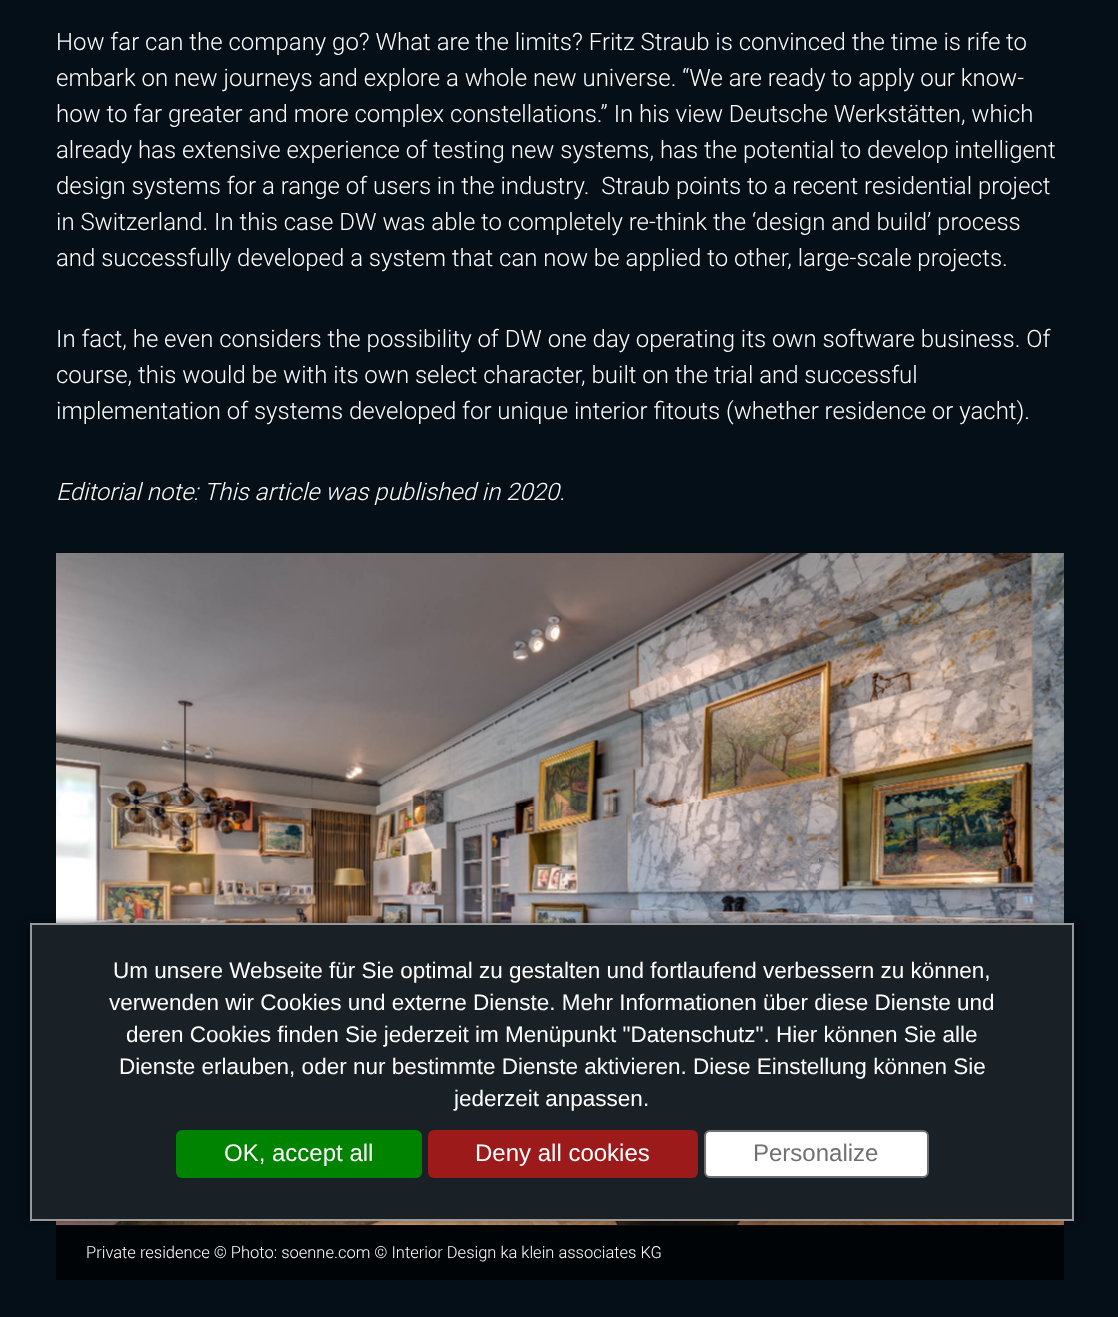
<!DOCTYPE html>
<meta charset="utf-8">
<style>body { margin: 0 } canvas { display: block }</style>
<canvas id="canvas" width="1118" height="1317"></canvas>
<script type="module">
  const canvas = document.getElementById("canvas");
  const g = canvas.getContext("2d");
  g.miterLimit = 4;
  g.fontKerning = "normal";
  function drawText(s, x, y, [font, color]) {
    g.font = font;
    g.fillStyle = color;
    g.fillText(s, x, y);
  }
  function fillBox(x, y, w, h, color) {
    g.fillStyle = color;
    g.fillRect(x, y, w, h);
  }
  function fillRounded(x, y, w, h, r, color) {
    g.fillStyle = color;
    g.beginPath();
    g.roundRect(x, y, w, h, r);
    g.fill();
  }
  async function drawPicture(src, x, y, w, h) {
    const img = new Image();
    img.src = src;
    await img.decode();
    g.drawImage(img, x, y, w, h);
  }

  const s1 = ["300 24px Roboto", "#FFFFFF"];
  const s2 = ["italic 300 24px Roboto", "#FFFFFF"];
  const s3 = ["300 16.5px Roboto", "#FFFFFF"];
  const s4 = ["22.5px Liberation Sans", "#FFFFFF"];
  const s5 = ["24px Liberation Sans", "#FFFFFF"];
  const s6 = ["24px Liberation Sans", "#707070"];

  fillBox(0, 0, 1118, 1317, "#050F18");
  drawText("How far can the company go? What are the limits? Fritz Straub is convinced the time is rife to", 56, 50, s1);
  drawText("embark on new journeys and explore a whole new universe. “We are ready to apply our know-", 56, 86, s1);
  drawText("how to far greater and more complex constellations.” In his view Deutsche Werkstätten, which", 56, 122, s1);
  drawText("already has extensive experience of testing new systems, has the potential to develop intelligent", 56, 158, s1);
  drawText("design systems for a range of users in the industry.  Straub points to a recent residential project", 56, 194, s1);
  drawText("in Switzerland. In this case DW was able to completely re-think the ‘design and build’ process", 56, 230, s1);
  drawText("and successfully developed a system that can now be applied to other, large-scale projects.", 56, 266, s1);
  drawText("In fact, he even considers the possibility of DW one day operating its own software business. Of", 56, 347, s1);
  drawText("course, this would be with its own select character, built on the trial and successful", 56, 383, s1);
  drawText("implementation of systems developed for unique interior fitouts (whether residence or yacht).", 56, 419, s1);
  drawText("Editorial note: This article was published in 2020.", 56, 500, s2);
  await drawPicture("pic1.png", 56, 553, 1008, 672);
  fillBox(56, 1226, 1008, 54, "#010406");
  drawText("Private residence © Photo: soenne.com © Interior Design ka klein associates KG", 86, 1258, s3);
  g.fillStyle = "rgba(0, 0, 0, 0.5)";
  g.filter = "blur(4px)";
  g.beginPath();
  g.rect(30, 923, 1044, 298);
  g.fill();
  g.filter = "none";
  g.fillStyle = "#192026";
  g.beginPath();
  g.rect(31, 924, 1042, 296);
  g.fill();
  g.strokeStyle = "#999999";
  g.lineWidth = 2;
  g.stroke();
  drawText("Um unsere Webseite für Sie optimal zu gestalten und fortlaufend verbessern zu können,", 113, 978, s4);
  drawText("verwenden wir Cookies und externe Dienste. Mehr Informationen über diese Dienste und", 109, 1010, s4);
  drawText("deren Cookies finden Sie jederzeit im Menüpunkt \"Datenschutz\". Hier können Sie alle", 126, 1042, s4);
  drawText("Dienste erlauben, oder nur bestimmte Dienste aktivieren. Diese Einstellung können Sie", 119, 1074, s4);
  drawText("jederzeit anpassen.", 454, 1106, s4);
  fillRounded(176, 1130, 246, 48, 6, "#008300");
  drawText("OK, accept all", 224, 1161, s5);
  fillRounded(428, 1130, 270, 48, 6, "#9C1A1A");
  drawText("Deny all cookies", 475, 1161, s5);
  g.beginPath();
  g.roundRect(705, 1131, 223, 46, 5);
  g.fill();
  g.strokeStyle = "#707070";
  g.stroke();
  drawText("Personalize", 753, 1161, s6);
</script>
